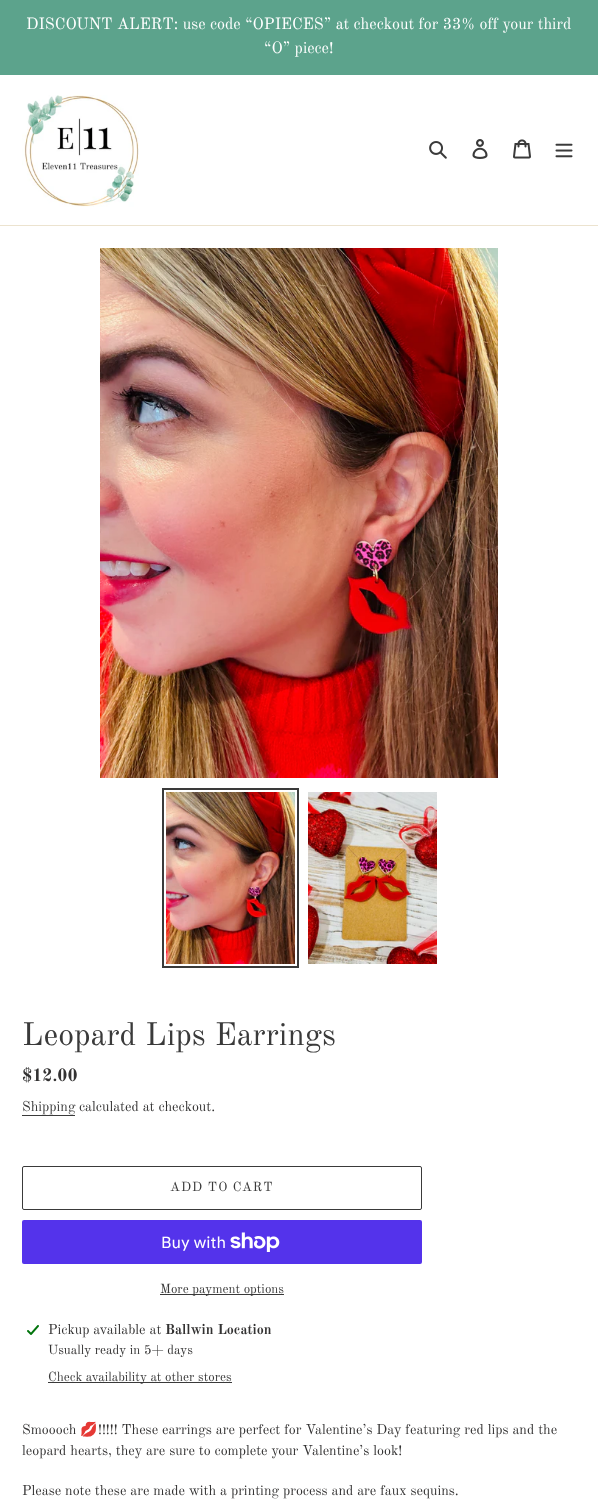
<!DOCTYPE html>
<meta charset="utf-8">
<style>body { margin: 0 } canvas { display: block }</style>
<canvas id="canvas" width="598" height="1499"></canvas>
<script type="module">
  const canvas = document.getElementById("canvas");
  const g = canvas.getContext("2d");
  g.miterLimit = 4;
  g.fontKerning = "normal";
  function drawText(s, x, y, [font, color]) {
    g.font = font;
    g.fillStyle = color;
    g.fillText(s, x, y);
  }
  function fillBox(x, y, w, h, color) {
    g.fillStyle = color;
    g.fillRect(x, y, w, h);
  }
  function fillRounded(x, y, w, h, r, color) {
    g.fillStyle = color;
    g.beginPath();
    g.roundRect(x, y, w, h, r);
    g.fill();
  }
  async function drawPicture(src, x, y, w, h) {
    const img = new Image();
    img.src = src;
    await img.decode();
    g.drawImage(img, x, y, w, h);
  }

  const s1 = ["16px Old Standard TT", "#FFFFFF"];
  const s2 = ["32px Old Standard TT", "#3A3A3A"];
  const s3 = ["bold 17.5px Old Standard TT", "#333232"];
  const s4 = ["14px Old Standard TT", "#3A3A3A"];
  const s5 = ["14px Old Standard TT", "#333232"];
  const s6 = ["13px Old Standard TT", "#3A3A3A"];
  const s7 = ["16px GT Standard", "#FFFFFF"];
  const s8 = ["bold 14px Old Standard TT", "#333232"];
  const s9 = ["13px Old Standard TT", "#333232"];
  const s10 = ["14px Noto Color Emoji", "#333232"];

  fillBox(0, 0, 598, 1499, "#FFFFFF");
  fillBox(0, 0, 598, 75, "#5CA38C");
  drawText("DISCOUNT ALERT: use code “OPIECES” at checkout for 33% off your third", 26, 29, s1);
  drawText("“O” piece!", 264, 53, s1);
  fillBox(0, 225, 598, 1, "#ECE3CF");
  await drawPicture("pic1.png", 22, 95, 117, 112);
  await drawPicture("pic2.png", 429, 141, 18, 18);
  await drawPicture("pic3.png", 472, 139, 16, 20);
  await drawPicture("pic4.png", 513, 139, 18, 20);
  await drawPicture("pic5.png", 555, 143, 18, 15);
  await drawPicture("pic6.png", 100, 248, 398, 530);
  g.strokeStyle = "#3A3A3A";
  g.lineWidth = 2;
  g.strokeRect(163, 789, 135, 178);
  await drawPicture("pic7.png", 166, 792, 129, 172);
  await drawPicture("pic8.png", 308, 792, 129, 172);
  drawText("Leopard Lips Earrings", 22, 1045, s2);
  drawText("$12.00", 22, 1081, s3);
  drawText("Shipping", 22, 1111, s4);
  fillBox(22, 1115, 53, 1, "#3A3A3A");
  drawText("calculated at checkout.", 79, 1111, s5);
  g.beginPath();
  g.roundRect(22.5, 1166.5, 399, 43, 1.5);
  g.lineWidth = 1;
  g.stroke();
  g.letterSpacing = "1px";
  drawText("ADD TO CART", 170, 1191, s6);
  fillRounded(22, 1220, 400, 44, 2, "#5433EB");
  g.letterSpacing = "0px";
  drawText("Buy with", 161, 1248, s7);
  await drawPicture("pic9.png", 230, 1232, 50, 20);
  fillBox(160, 1294, 124, 1, "#3A3A3A");
  drawText("More payment options", 160, 1293, s6);
  await drawPicture("pic10.png", 27, 1325, 12, 10);
  drawText("Pickup available at", 48, 1334, s5);
  drawText("Ballwin Location", 165, 1334, s8);
  drawText("Usually ready in 5+ days", 48, 1354, s9);
  fillBox(48, 1382, 184, 1, "#3A3A3A");
  drawText("Check availability at other stores", 48, 1381, s6);
  drawText("Smoooch", 22, 1434, s5);
  drawText("💋", 80, 1434, s10);
  drawText("!!!!! These earrings are perfect for Valentine’s Day featuring red lips and the", 98, 1434, s5);
  drawText("leopard hearts, they are sure to complete your Valentine’s look!", 22, 1455, s5);
  drawText("Please note these are made with a printing process and are faux sequins.", 22, 1495, s5);
</script>
